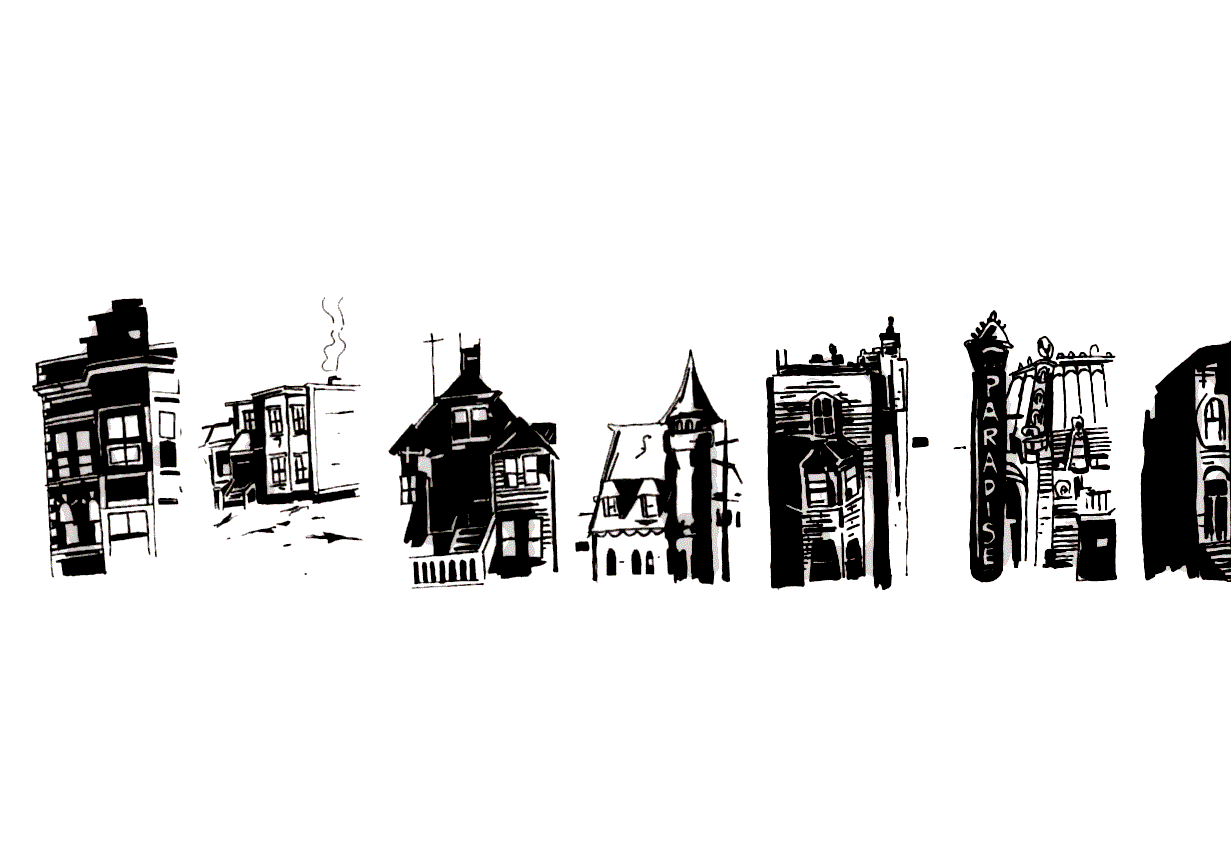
<!DOCTYPE html>
<meta charset="utf-8">
<style>body { margin: 0 } canvas { display: block }</style>
<canvas id="canvas" width="1231" height="862"></canvas>
<script type="module">
  const canvas = document.getElementById("canvas");
  const g = canvas.getContext("2d");
  g.miterLimit = 4;
  g.fontKerning = "normal";
  function fillBox(x, y, w, h, color) {
    g.fillStyle = color;
    g.fillRect(x, y, w, h);
  }
  async function drawPicture(src, x, y, w, h) {
    const img = new Image();
    img.src = src;
    await img.decode();
    g.drawImage(img, x, y, w, h);
  }

  fillBox(0, 0, 1231, 862, "#FFFFFF");
  await drawPicture("pic1.png", 32, 297, 1199, 293);
</script>
